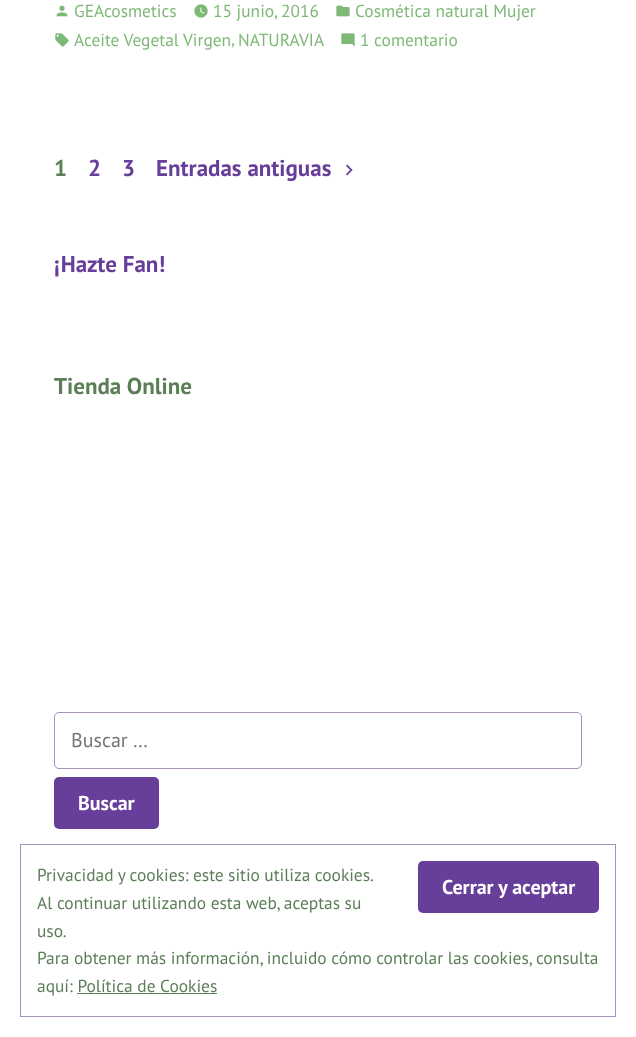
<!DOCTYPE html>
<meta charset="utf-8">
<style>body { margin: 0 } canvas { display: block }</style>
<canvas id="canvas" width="636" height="1037"></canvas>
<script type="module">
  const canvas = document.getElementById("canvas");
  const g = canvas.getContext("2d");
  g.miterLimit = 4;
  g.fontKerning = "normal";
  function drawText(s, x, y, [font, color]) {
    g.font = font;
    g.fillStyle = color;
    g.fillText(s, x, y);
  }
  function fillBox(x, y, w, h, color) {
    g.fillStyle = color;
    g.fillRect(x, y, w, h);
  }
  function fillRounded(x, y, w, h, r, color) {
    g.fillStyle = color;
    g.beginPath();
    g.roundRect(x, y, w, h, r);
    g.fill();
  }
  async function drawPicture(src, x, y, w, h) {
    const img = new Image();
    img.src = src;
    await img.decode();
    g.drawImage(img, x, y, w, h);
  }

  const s1 = ["17.4px PT Sans", "#7EB877"];
  const s2 = ["bold 23px PT Sans", "#5B7E57"];
  const s3 = ["bold 23px PT Sans", "#673F9B"];
  const s4 = ["20px PT Sans", "#757575"];
  const s5 = ["bold 20px PT Sans", "#FFFFFF"];
  const s6 = ["17.4px PT Sans", "#5B7E57"];

  fillBox(0, 0, 636, 1037, "#FFFFFF");
  await drawPicture("pic1.png", 56, 5, 12, 12);
  drawText("GEAcosmetics", 74, 17, s1);
  await drawPicture("pic2.png", 194, 4, 14, 14);
  drawText("15 junio, 2016", 213, 17, s1);
  await drawPicture("pic3.png", 336, 5, 14, 12);
  drawText("Cosmética natural Mujer", 355, 17, s1);
  await drawPicture("pic4.png", 55, 33, 14, 14);
  drawText("Aceite Vegetal Virgen", 74, 46, s1);
  drawText(",", 231, 45, s1);
  drawText("NATURAVIA", 238, 46, s1);
  await drawPicture("pic5.png", 341, 33, 14, 14);
  drawText("1 comentario", 360, 46, s1);
  drawText("1", 54, 176, s2);
  drawText("2", 88, 176, s3);
  drawText("3", 122, 176, s3);
  drawText("Entradas antiguas", 156, 176, s3);
  await drawPicture("pic6.png", 346, 164, 7, 12);
  drawText("¡Hazte Fan!", 54, 272, s3);
  drawText("Tienda Online", 54, 394, s2);
  g.beginPath();
  g.roundRect(54.5, 712.5, 527, 56, 4.5);
  g.strokeStyle = "#A791BE";
  g.stroke();
  drawText("Buscar …", 71, 747, s4);
  fillRounded(54, 777, 105, 52, 5, "#673F9B");
  drawText("Buscar", 78, 810, s5);
  g.strokeRect(20.5, 844.5, 595, 172);
  g.wordSpacing = "-0.25px";
  drawText("Privacidad y cookies: este sitio utiliza cookies.", 37, 881, s6);
  fillRounded(418, 861, 181, 52, 5, "#673F9B");
  g.wordSpacing = "0px";
  drawText("Cerrar y aceptar", 442, 894, s5);
  drawText("Al continuar utilizando esta web, aceptas su", 37, 909, s6);
  drawText("uso.", 37, 937, s6);
  drawText("Para obtener más información, incluido cómo controlar las cookies, consulta", 37, 964, s6);
  drawText("aquí: Política de Cookies", 37, 992, s6);
  fillBox(77, 993, 140, 1, "#5B7E57");
</script>
